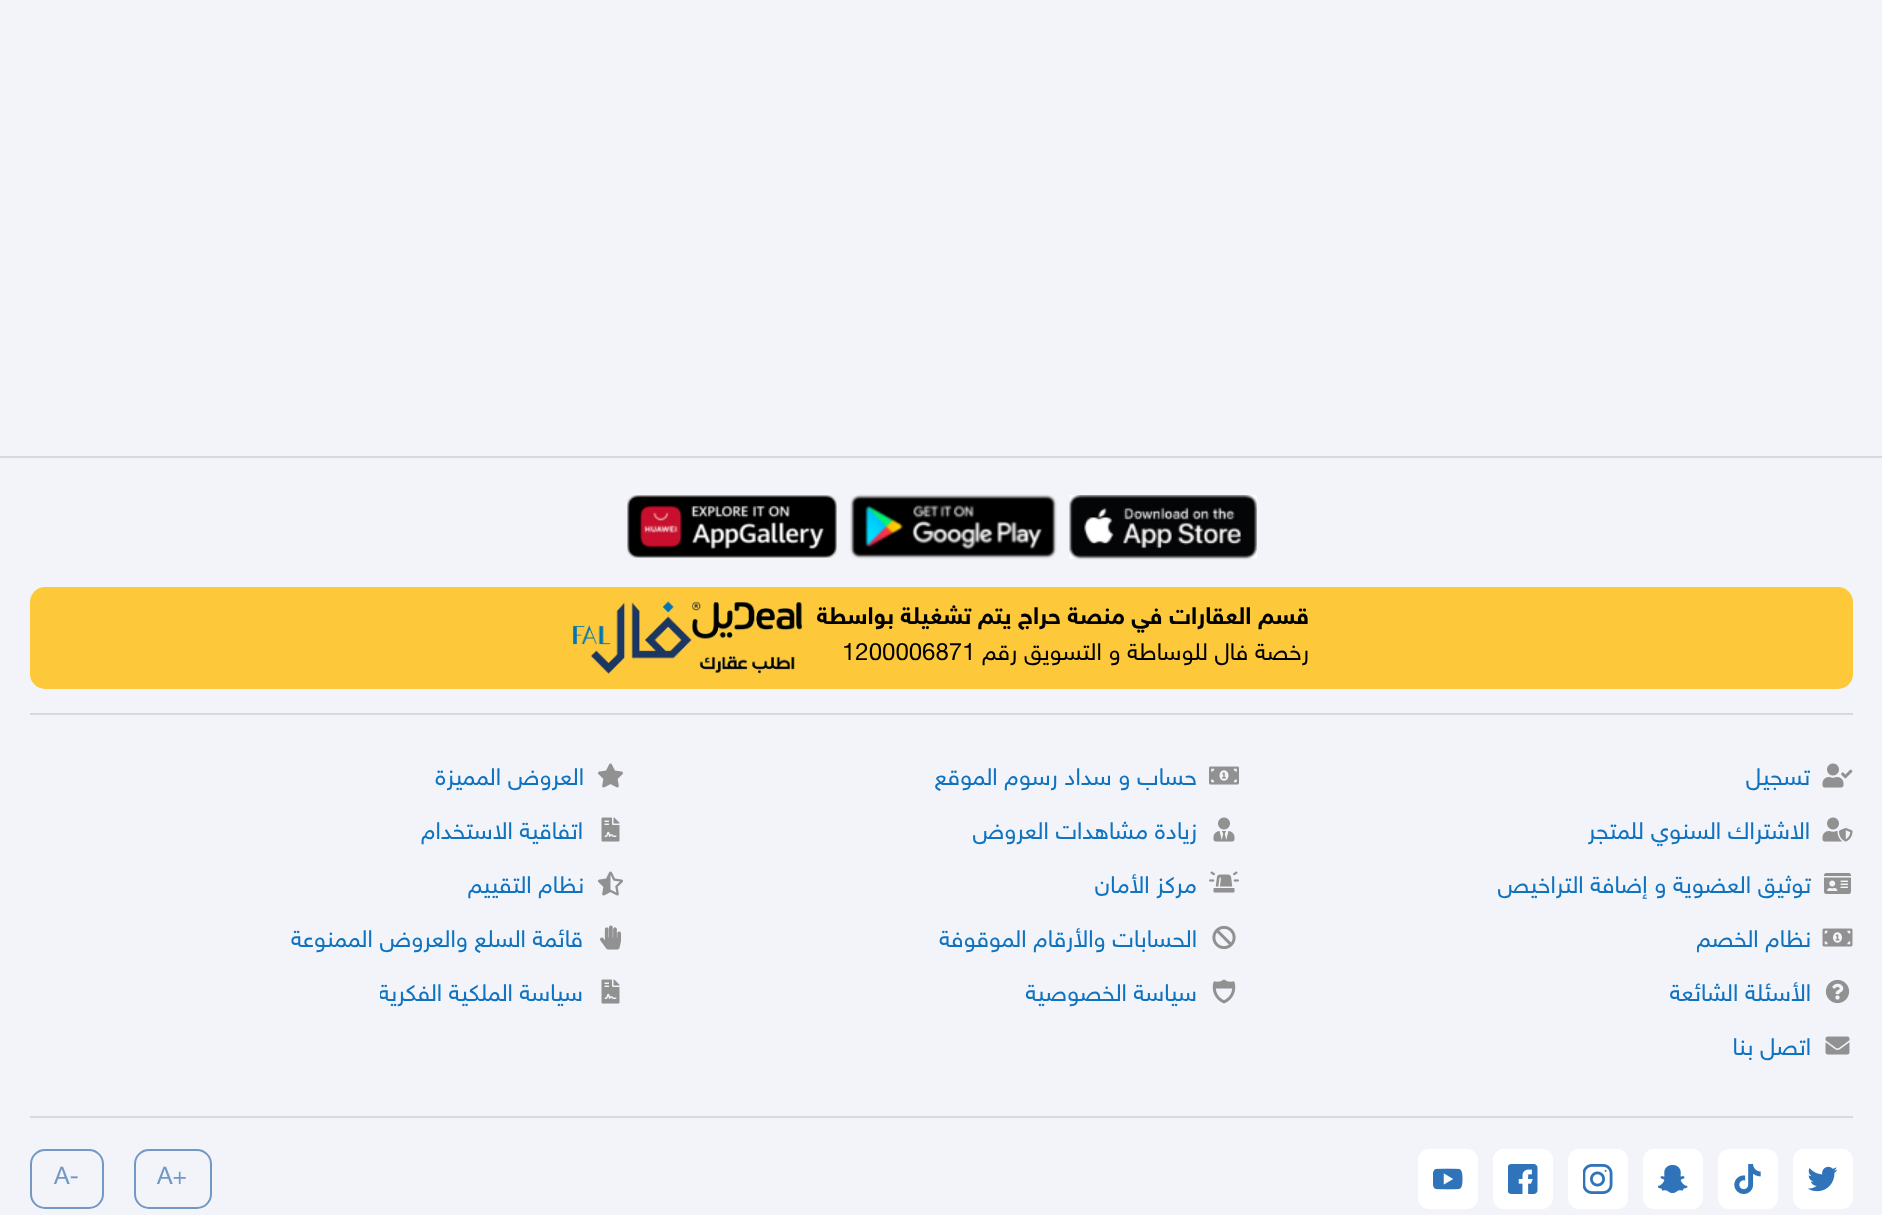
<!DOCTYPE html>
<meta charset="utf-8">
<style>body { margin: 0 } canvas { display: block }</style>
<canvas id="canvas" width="1882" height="1215"></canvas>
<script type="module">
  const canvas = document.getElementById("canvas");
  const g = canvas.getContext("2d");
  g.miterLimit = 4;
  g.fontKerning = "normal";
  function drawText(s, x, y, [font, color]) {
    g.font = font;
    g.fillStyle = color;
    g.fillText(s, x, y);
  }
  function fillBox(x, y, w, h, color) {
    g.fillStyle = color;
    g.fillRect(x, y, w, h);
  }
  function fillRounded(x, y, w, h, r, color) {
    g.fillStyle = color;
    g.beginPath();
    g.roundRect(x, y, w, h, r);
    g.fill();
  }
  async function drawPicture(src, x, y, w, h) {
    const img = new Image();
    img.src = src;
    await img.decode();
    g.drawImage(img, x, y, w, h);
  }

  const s1 = ["bold 24px 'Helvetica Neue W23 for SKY'", "#000000"];
  const s2 = ["24px 'Helvetica Neue W23 for SKY'", "#000000"];
  const s3 = ["24px 'Helvetica Neue W23 for SKY'", "#1073C0"];
  const s4 = ["24px 'Helvetica Neue W23 for SKY'", "#7298C4"];

  fillBox(0, 0, 1882, 1215, "#F2F4FA");
  fillBox(0, 456, 1882, 2, "#D4DADE");
  await drawPicture("pic1.png", 1069, 495, 188, 65);
  await drawPicture("pic2.png", 850, 494, 207, 65);
  await drawPicture("pic3.png", 627, 495, 210, 63);
  fillRounded(30, 587, 1823, 102, 15, "#FDC93A");
  g.direction = "rtl";
  drawText("قسم العقارات في منصة حراج يتم تشغيلة بواسطة", 1309, 624, s1);
  drawText("رخصة فال للوساطة و التسويق رقم", 1309, 660, s2);
  g.direction = "ltr";
  drawText("1200006871", 842, 660, s2);
  await drawPicture("pic4.png", 692, 602, 111, 72);
  await drawPicture("pic5.png", 573, 601, 119, 73);
  fillBox(30, 713, 1823, 2, "#D4DADE");
  fillBox(30, 1116, 1823, 2, "#D4DADE");
  await drawPicture("pic6.png", 1822, 763, 31, 25);
  g.direction = "rtl";
  drawText("تسجيل", 1810, 785, s3);
  await drawPicture("pic7.png", 1209, 766, 30, 19);
  drawText("حساب و سداد رسوم الموقع", 1197, 785, s3);
  await drawPicture("pic8.png", 598, 763, 25, 25);
  drawText("العروض المميزة", 584, 785, s3);
  await drawPicture("pic9.png", 1822, 817, 31, 25);
  drawText("الاشتراك السنوي للمتجر", 1810, 839, s3);
  await drawPicture("pic10.png", 1213, 817, 22, 25);
  drawText("زيادة مشاهدات العروض", 1197, 839, s3);
  await drawPicture("pic11.png", 601, 817, 19, 25);
  drawText("اتفاقية الاستخدام", 583, 839, s3);
  await drawPicture("pic12.png", 1824, 873, 27, 21);
  drawText("توثيق العضوية و إضافة التراخيص", 1811, 893, s3);
  await drawPicture("pic13.png", 1209, 871, 30, 22);
  drawText("مركز الأمان", 1197, 893, s3);
  await drawPicture("pic14.png", 598, 871, 25, 25);
  drawText("نظام التقييم", 584, 893, s3);
  await drawPicture("pic15.png", 1822, 928, 31, 19);
  g.save();
  g.beginPath();
  g.rect(1697, 924, 114, 36);
  g.clip();
  drawText("نظام الخصم", 1811, 947, s3);
  g.restore();
  await drawPicture("pic16.png", 1212, 925, 24, 25);
  drawText("الحسابات والأرقام الموقوفة", 1197, 947, s3);
  await drawPicture("pic17.png", 600, 925, 21, 25);
  drawText("قائمة السلع والعروض الممنوعة", 583, 947, s3);
  await drawPicture("pic18.png", 1825, 979, 25, 25);
  g.save();
  g.beginPath();
  g.rect(1670, 978, 141, 36);
  g.clip();
  drawText("الأسئلة الشائعة", 1811, 1001, s3);
  g.restore();
  await drawPicture("pic19.png", 1212, 979, 24, 25);
  drawText("سياسة الخصوصية", 1197, 1001, s3);
  await drawPicture("pic11.png", 601, 979, 19, 25);
  g.save();
  g.beginPath();
  g.rect(380, 978, 204, 36);
  g.clip();
  drawText("سياسة الملكية الفكرية", 583, 1001, s3);
  g.restore();
  await drawPicture("pic20.png", 1825, 1036, 25, 19);
  drawText("اتصل بنا", 1811, 1055, s3);
  fillRounded(1793, 1149, 60, 60, 11, "#FFFFFF");
  await drawPicture("pic21.png", 1808, 1166, 30, 26);
  fillRounded(1718, 1149, 60, 60, 11, "#FFFFFF");
  await drawPicture("pic22.png", 1734, 1164, 27, 30);
  fillRounded(1643, 1149, 60, 60, 11, "#FFFFFF");
  await drawPicture("pic23.png", 1658, 1164, 30, 30);
  fillRounded(1568, 1149, 60, 60, 11, "#FFFFFF");
  await drawPicture("pic24.png", 1583, 1164, 30, 30);
  fillRounded(1493, 1149, 60, 60, 11, "#FFFFFF");
  await drawPicture("pic25.png", 1508, 1164, 30, 30);
  fillRounded(1418, 1149, 60, 60, 11, "#FFFFFF");
  await drawPicture("pic26.png", 1433, 1168, 30, 22);
  g.beginPath();
  g.roundRect(135, 1150, 76, 58, 14);
  g.strokeStyle = "#7298C4";
  g.lineWidth = 2;
  g.stroke();
  g.direction = "ltr";
  drawText("A+", 157, 1184, s4);
  g.beginPath();
  g.roundRect(31, 1150, 72, 58, 14);
  g.stroke();
  drawText("A-", 54, 1184, s4);
</script>
